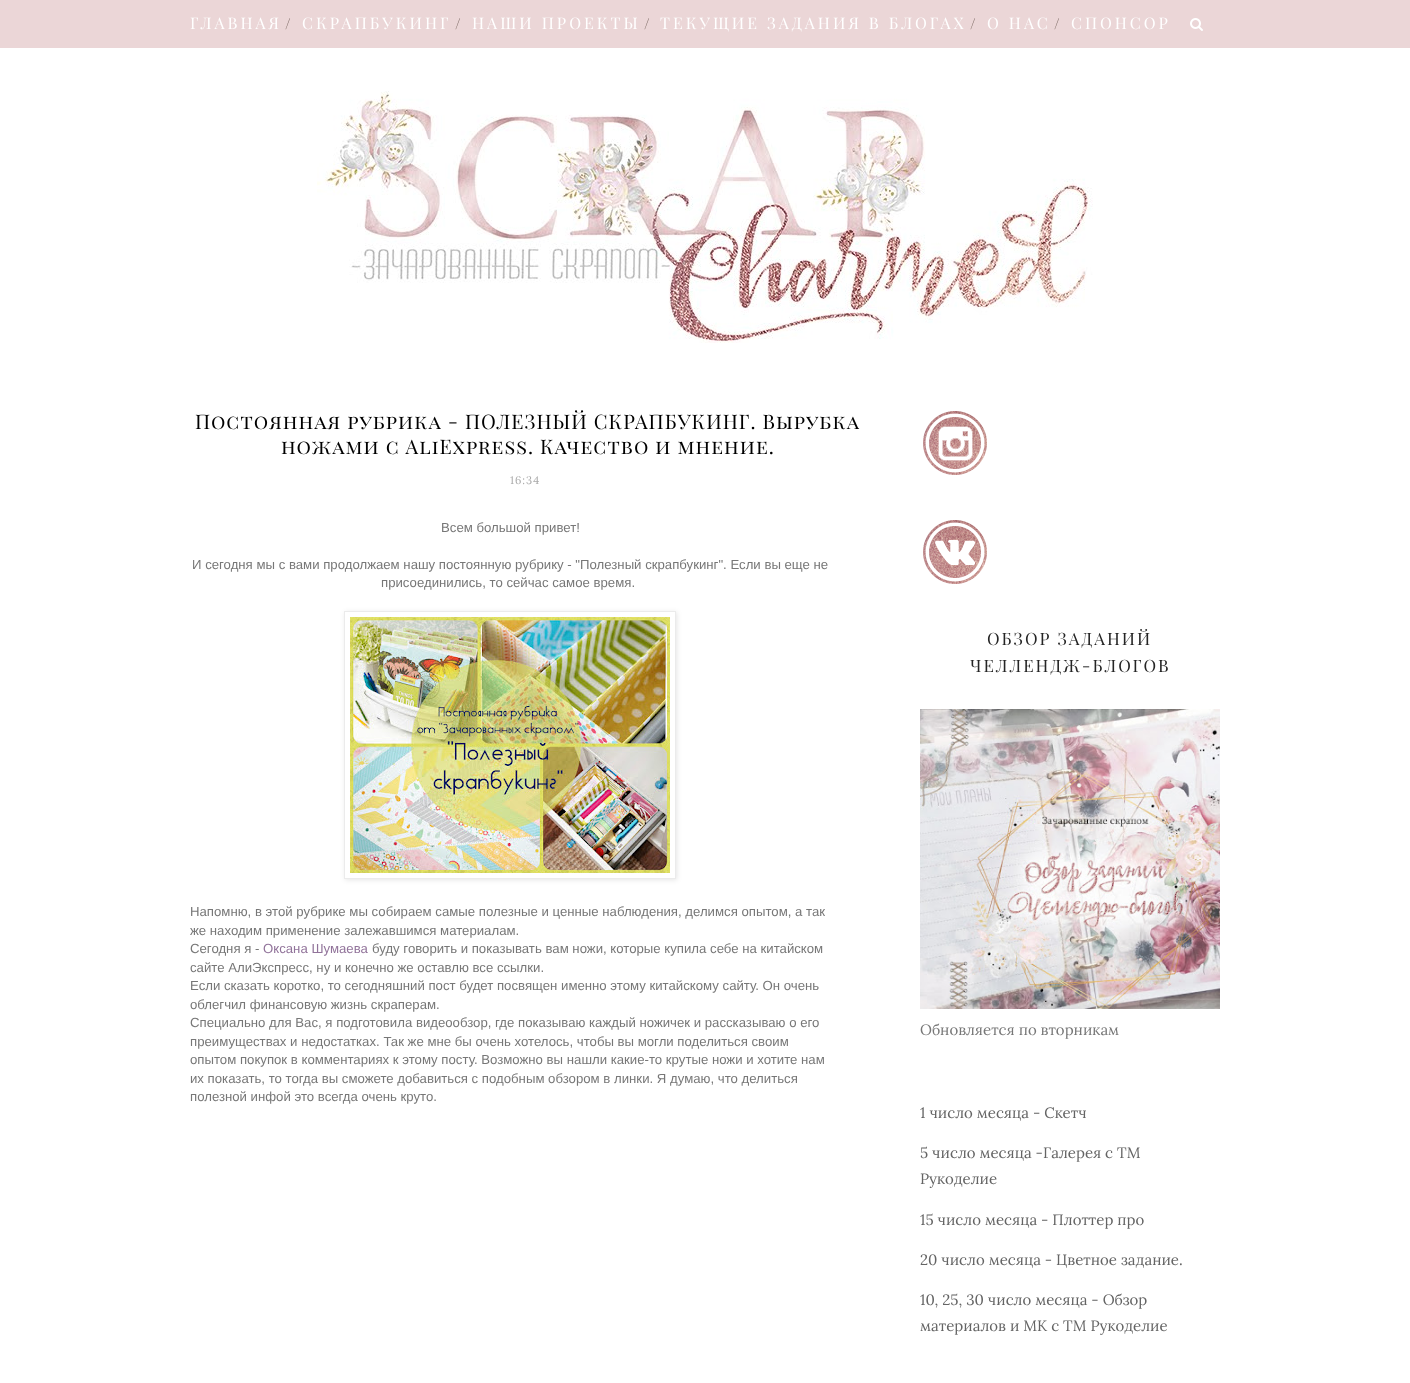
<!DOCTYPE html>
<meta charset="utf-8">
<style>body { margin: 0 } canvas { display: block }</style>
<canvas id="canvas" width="1410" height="1383"></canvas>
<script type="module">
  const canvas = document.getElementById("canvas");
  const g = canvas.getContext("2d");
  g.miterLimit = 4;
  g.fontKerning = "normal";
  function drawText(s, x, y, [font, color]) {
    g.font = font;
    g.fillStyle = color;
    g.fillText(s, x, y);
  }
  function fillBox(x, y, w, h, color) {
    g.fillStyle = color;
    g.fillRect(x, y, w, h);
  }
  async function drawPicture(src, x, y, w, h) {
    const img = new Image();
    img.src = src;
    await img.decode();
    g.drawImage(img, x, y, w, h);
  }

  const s1 = ["16px Playfair Display SC", "#FFFFFF"];
  const s2 = ["15px Playfair Display SC", "#79665F"];
  const s3 = ["20px Playfair Display SC", "#000000"];
  const s4 = ["11px Lora", "#AAAAAA"];
  const s5 = ["13.2px Liberation Sans", "#777777"];
  const s6 = ["13.2px Liberation Sans", "#91739A"];
  const s7 = ["17px Playfair Display SC", "#252525"];
  const s8 = ["15px Lora", "#777777"];
  const s9 = ["15px Lora", "#646464"];

  fillBox(0, 0, 1410, 1383, "#FFFFFF");
  fillBox(0, 0, 1410, 48, "#EBD6D7");
  g.letterSpacing = "3px";
  drawText("ГЛАВНАЯ", 190, 29, s1);
  drawText("/", 285, 29, s2);
  drawText("СКРАПБУКИНГ", 302, 29, s1);
  drawText("/", 455, 29, s2);
  drawText("НАШИ ПРОЕКТЫ", 472, 29, s1);
  drawText("/", 644, 29, s2);
  drawText("ТЕКУЩИЕ ЗАДАНИЯ В БЛОГАХ", 660, 29, s1);
  drawText("/", 970, 29, s2);
  drawText("О НАС", 987, 29, s1);
  drawText("/", 1054, 29, s2);
  drawText("СПОНСОР", 1071, 29, s1);
  await drawPicture("pic1.png", 1190, 18, 13, 13);
  await drawPicture("pic2.png", 317, 91, 776, 252);
  g.letterSpacing = "1px";
  drawText("Постоянная рубрика - ПОЛЕЗНЫЙ СКРАПБУКИНГ. Вырубка", 195, 429, s3);
  drawText("ножами с AliExpress. Качество и мнение.", 281, 454, s3);
  drawText("16:34", 510, 484, s4);
  g.letterSpacing = "0px";
  drawText("Всем большой привет!", 441, 532, s5);
  drawText("И сегодня мы с вами продолжаем нашу постоянную рубрику - \"Полезный скрапбукинг\". Если вы еще не", 192, 569, s5);
  drawText("присоединились, то сейчас самое время.", 381, 587, s5);
  g.save();
  g.beginPath();
  g.moveTo(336, 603);
  g.lineTo(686, 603);
  g.lineTo(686, 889);
  g.lineTo(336, 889);
  g.closePath();
  g.moveTo(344, 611);
  g.lineTo(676, 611);
  g.lineTo(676, 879);
  g.lineTo(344, 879);
  g.closePath();
  g.clip("evenodd");
  g.fillStyle = "rgba(0, 0, 0, 0.1)";
  g.filter = "blur(2.5px)";
  g.beginPath();
  g.rect(345, 612, 332, 268);
  g.fill();
  g.filter = "none";
  g.restore();
  g.strokeStyle = "#EBEBEB";
  g.strokeRect(344.5, 611.5, 331, 267);
  await drawPicture("pic3.png", 350, 617, 320, 256);
  drawText("Напомню, в этой рубрике мы собираем самые полезные и ценные наблюдения, делимся опытом, а так", 190, 916, s5);
  drawText("же находим применение залежавшимся материалам.", 190, 935, s5);
  drawText("Сегодня я -", 190, 953, s5);
  drawText("Оксана Шумаева", 263, 953, s6);
  drawText("буду говорить и показывать вам ножи, которые купила себе на китайском", 372, 953, s5);
  drawText("сайте АлиЭкспресс, ну и конечно же оставлю все ссылки.", 190, 972, s5);
  drawText("Если сказать коротко, то сегодняшний пост будет посвящен именно этому китайскому сайту. Он очень", 190, 990, s5);
  drawText("облегчил финансовую жизнь скраперам.", 190, 1009, s5);
  drawText("Специально для Вас, я подготовила видеообзор, где показываю каждый ножичек и рассказываю о его", 190, 1027, s5);
  drawText("преимуществах и недостатках. Так же мне бы очень хотелось, чтобы вы могли поделиться своим", 190, 1046, s5);
  drawText("опытом покупок в комментариях к этому посту. Возможно вы нашли какие-то крутые ножи и хотите нам", 190, 1064, s5);
  drawText("их показать, то тогда вы сможете добавиться с подобным обзором в линки. Я думаю, что делиться", 190, 1083, s5);
  drawText("полезной инфой это всегда очень круто.", 190, 1101, s5);
  await drawPicture("pic4.png", 923, 411, 64, 64);
  await drawPicture("pic5.png", 923, 520, 64, 64);
  g.letterSpacing = "2px";
  drawText("ОБЗОР ЗАДАНИЙ", 987, 645, s7);
  drawText("ЧЕЛЛЕНДЖ-БЛОГОВ", 970, 672, s7);
  await drawPicture("pic6.png", 920, 709, 300, 300);
  g.letterSpacing = "0px";
  drawText("Обновляется по вторникам", 920, 1035, s8);
  drawText("1 число месяца - Скетч", 920, 1118, s9);
  drawText("5 число месяца -Галерея с ТМ", 920, 1158, s9);
  drawText("Рукоделие", 920, 1184, s9);
  drawText("15 число месяца - Плоттер про", 920, 1225, s9);
  drawText("20 число месяца - Цветное задание.", 920, 1265, s9);
  drawText("10, 25, 30 число месяца - Обзор", 920, 1305, s9);
  drawText("материалов и МК с ТМ Рукоделие", 920, 1331, s9);
</script>
